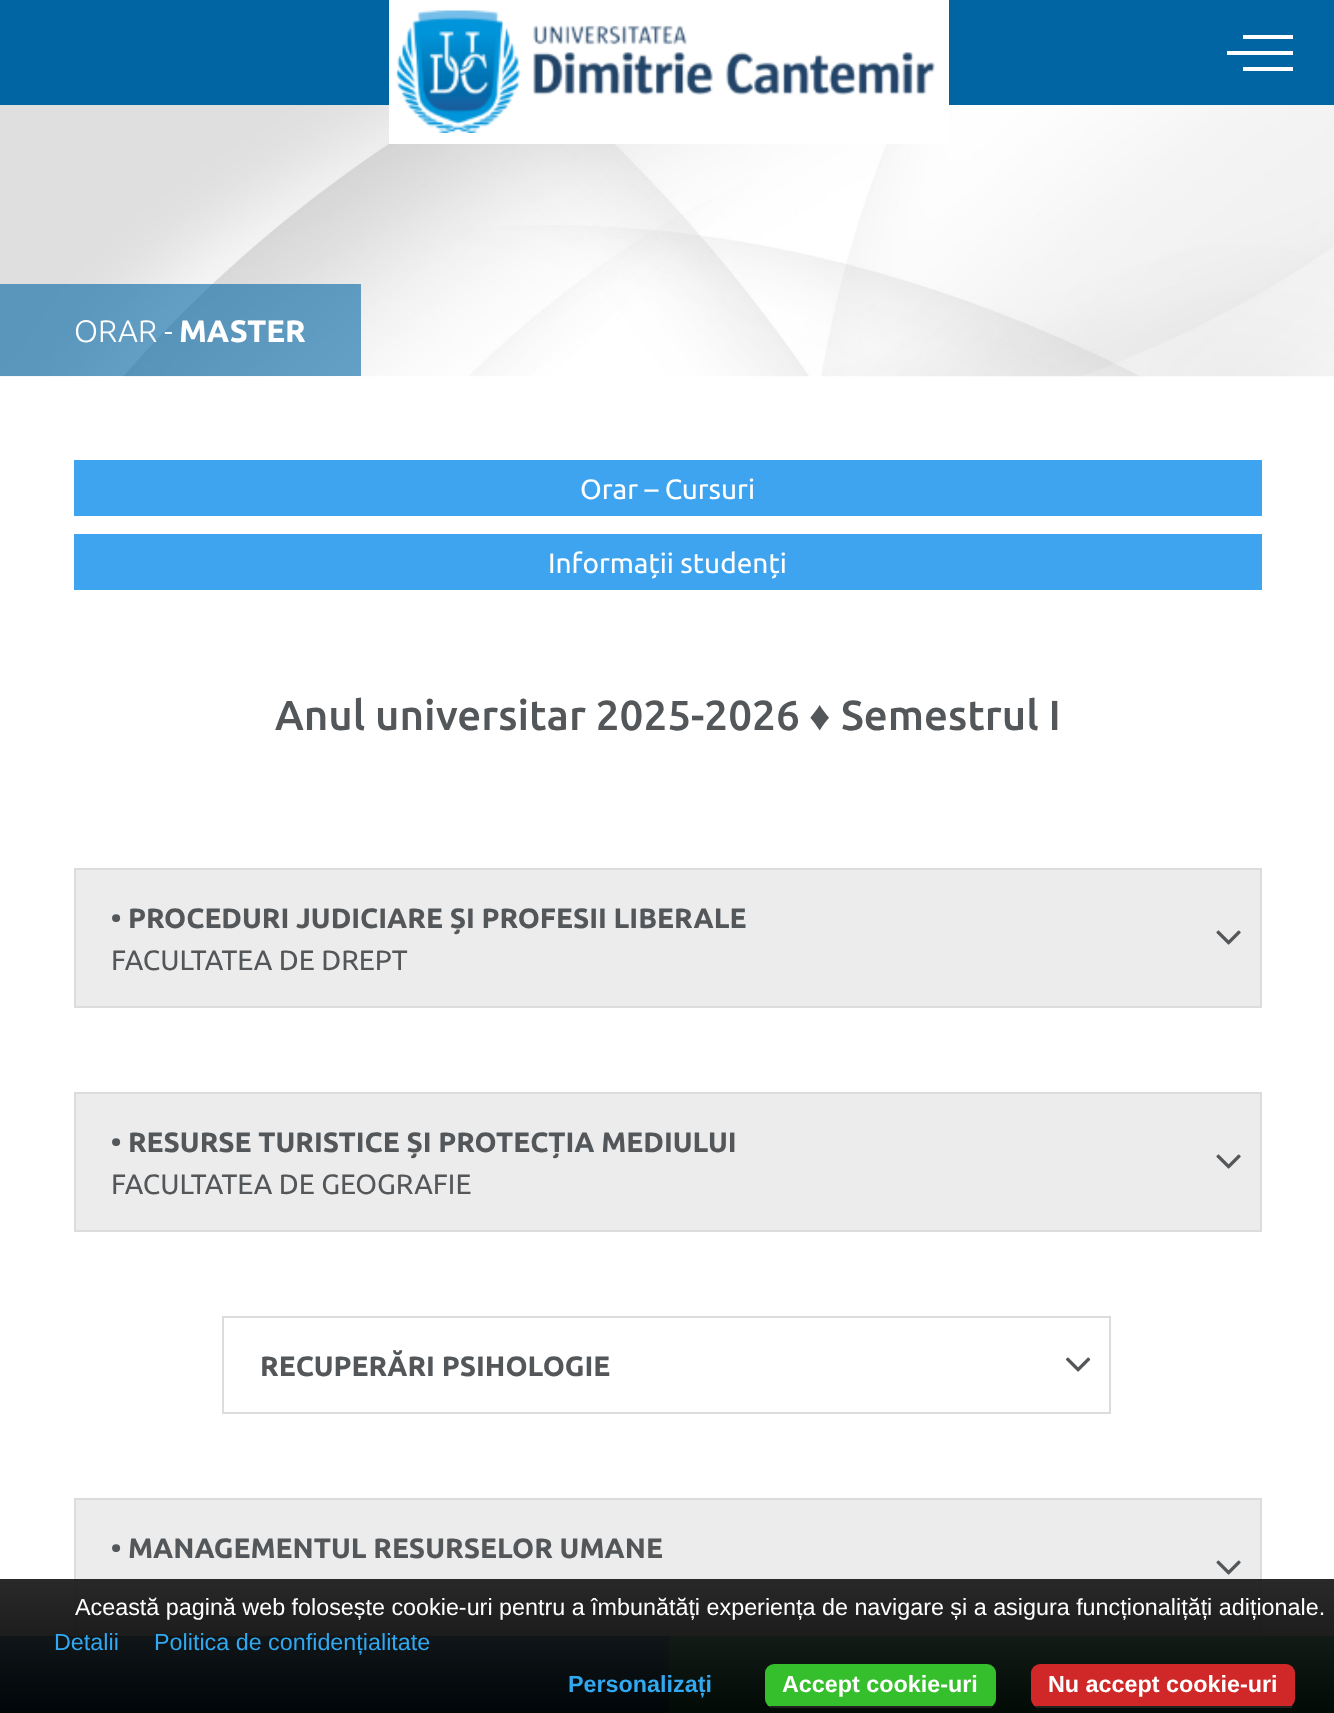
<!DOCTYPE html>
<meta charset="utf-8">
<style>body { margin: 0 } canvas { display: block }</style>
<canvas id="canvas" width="1334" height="1713"></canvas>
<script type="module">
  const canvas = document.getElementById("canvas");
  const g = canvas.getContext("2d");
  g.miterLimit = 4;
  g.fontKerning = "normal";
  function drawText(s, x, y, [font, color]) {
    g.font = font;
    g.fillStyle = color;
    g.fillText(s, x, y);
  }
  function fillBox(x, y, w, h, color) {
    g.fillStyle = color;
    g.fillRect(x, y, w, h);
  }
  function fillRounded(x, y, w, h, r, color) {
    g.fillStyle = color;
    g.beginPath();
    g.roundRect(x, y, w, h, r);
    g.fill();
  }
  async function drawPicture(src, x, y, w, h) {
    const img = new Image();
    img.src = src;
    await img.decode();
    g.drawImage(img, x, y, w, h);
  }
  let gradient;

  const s1 = ["300 31px Ubuntu", "#FFFFFF"];
  const s2 = ["bold 31px Ubuntu", "#FFFFFF"];
  const s3 = ["28px Ubuntu", "#FFFFFF"];
  const s4 = ["500 42px Ubuntu", "#54575A"];
  const s5 = ["42px Liberation Sans", "#54575A"];
  const s6 = ["bold 28px Ubuntu", "#54575A"];
  const s7 = ["28px Ubuntu", "#54575A"];
  const s8 = ["23.33px Liberation Sans", "#FFFFFF"];
  const s9 = ["23.33px Liberation Sans", "#31A8F0"];
  const s10 = ["bold 23.33px Liberation Sans", "#31A8F0"];
  const s11 = ["bold 23.33px Liberation Sans", "#FFFFFF"];

  fillBox(0, 0, 1334, 1713, "#FFFFFF");
  fillBox(0, 0, 1334, 105, "#0265A3");
  await drawPicture("pic2.png", 0, 105, 1334, 272);
  fillBox(389, 0, 560, 144, "#FFFFFF");
  await drawPicture("pic1.png", 396, 10, 539, 123);
  fillBox(1243, 35, 50, 4, "#FFFFFF");
  fillBox(1227, 51, 66, 4, "#FFFFFF");
  fillBox(1243, 67, 50, 4, "#FFFFFF");
  fillBox(74, 284, 287, 92, "rgba(2, 101, 163, 0.6)");
  fillBox(0, 284, 74, 92, "rgba(2, 101, 163, 0.6)");
  drawText("ORAR -", 74, 342, s1);
  drawText("MASTER", 179, 342, s2);
  fillBox(74, 460, 1188, 56, "#3EA4F0");
  drawText("Orar – Cursuri", 580, 499, s3);
  fillBox(74, 534, 1188, 56, "#3EA4F0");
  drawText("Informații studenți", 548, 573, s3);
  drawText("Anul universitar 2025-2026", 275, 730, s4);
  drawText("♦", 809, 730, s5);
  drawText("Semestrul I", 841, 730, s4);
  g.fillStyle = "#ECECEC";
  g.beginPath();
  g.rect(75, 869, 1186, 138);
  g.fill();
  g.strokeStyle = "#DCDCDD";
  g.lineWidth = 2;
  g.stroke();
  drawText("• PROCEDURI JUDICIARE ȘI PROFESII LIBERALE", 111, 928, s6);
  await drawPicture("pic3.png", 1216, 930, 25, 15);
  drawText("FACULTATEA DE DREPT", 111, 970, s7);
  g.fillStyle = "#ECECEC";
  g.beginPath();
  g.rect(75, 1093, 1186, 138);
  g.fill();
  g.stroke();
  drawText("• RESURSE TURISTICE ȘI PROTECȚIA MEDIULUI", 111, 1152, s6);
  await drawPicture("pic3.png", 1216, 1154, 25, 15);
  drawText("FACULTATEA DE GEOGRAFIE", 111, 1194, s7);
  g.strokeRect(223, 1317, 887, 96);
  drawText("RECUPERĂRI PSIHOLOGIE", 260, 1376, s6);
  await drawPicture("pic4.png", 1065, 1357, 26, 15);
  g.fillStyle = "#ECECEC";
  g.beginPath();
  g.rect(75, 1499, 1186, 138);
  g.fill();
  g.stroke();
  drawText("• MANAGEMENTUL RESURSELOR UMANE", 111, 1558, s6);
  await drawPicture("pic3.png", 1216, 1560, 25, 15);
  fillBox(0, 1636, 669, 77, "#0265A3");
  fillBox(669, 1636, 665, 77, "#24CC63");
  gradient = g.createLinearGradient(668, 1579, 668, 1713);
  gradient.addColorStop(0, "rgba(30, 30, 30, 0.95)");
  gradient.addColorStop(1, "rgba(0, 0, 0, 0.95)");
  g.fillStyle = gradient;
  g.fillRect(0, 1579, 1334, 134);
  drawText("Această pagină web folosește cookie-uri pentru a îmbunătăți experiența de navigare și a asigura funcționalițăți adiționale.", 75, 1615, s8);
  drawText("Detalii", 54, 1650, s9);
  drawText("Politica de confidențialitate", 154, 1650, s9);
  drawText("Personalizați", 568, 1692, s10);
  fillRounded(765, 1664, 231, 44, 9, "#36BF2D");
  fillBox(770, 1706, 222, 2, "#222222");
  drawText("Accept cookie-uri", 782, 1692, s11);
  fillRounded(1031, 1664, 264, 44, 9, "#D02828");
  fillBox(1036, 1706, 256, 2, "#222222");
  drawText("Nu accept cookie-uri", 1048, 1692, s11);
</script>
